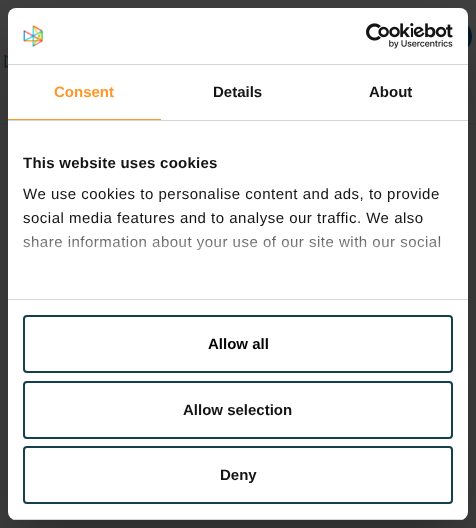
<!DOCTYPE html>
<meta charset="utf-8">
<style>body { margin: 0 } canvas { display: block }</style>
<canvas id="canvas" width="476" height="528"></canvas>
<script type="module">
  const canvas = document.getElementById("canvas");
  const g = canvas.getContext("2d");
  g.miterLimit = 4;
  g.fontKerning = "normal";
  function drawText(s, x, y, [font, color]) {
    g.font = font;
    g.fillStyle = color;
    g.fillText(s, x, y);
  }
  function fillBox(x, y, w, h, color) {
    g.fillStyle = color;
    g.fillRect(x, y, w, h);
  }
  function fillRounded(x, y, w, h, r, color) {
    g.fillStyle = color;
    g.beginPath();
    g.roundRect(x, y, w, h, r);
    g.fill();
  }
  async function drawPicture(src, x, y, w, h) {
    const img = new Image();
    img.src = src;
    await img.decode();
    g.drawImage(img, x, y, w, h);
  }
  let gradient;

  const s1 = ["bold 15px Liberation Sans", "#FF9728"];
  const s2 = ["bold 15px Liberation Sans", "#141414"];
  const s3 = ["15px Liberation Sans", "#141414"];
  const s4 = ["bold 15px Liberation Sans", "#000000"];

  fillBox(0, 0, 476, 528, "#404040");
  fillBox(0, 124, 476, 1, "#3C3D3E");
  fillRounded(263, 19, 209, 35, 17.5, "#011A2B");
  await drawPicture("pic1.png", 4, 55, 4, 13);
  fillBox(0, 123, 476, 1, "#3D3E3E");
  g.fillStyle = "rgba(0, 0, 0, 0.3)";
  g.filter = "blur(34px)";
  g.beginPath();
  g.roundRect(8, 40, 460, 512, 8);
  g.fill();
  g.filter = "none";
  fillRounded(8, 8, 460, 512, 8, "#FFFFFF");
  fillBox(8, 64, 460, 1, "#D6D6D6");
  await drawPicture("pic2.png", 23, 25, 20, 22);
  await drawPicture("pic3.png", 366, 23, 87, 26);
  fillBox(8, 120, 460, 1, "#D6D6D6");
  fillBox(8, 119, 153, 1, "#FF9728");
  drawText("Consent", 54, 97, s1);
  drawText("Details", 213, 97, s2);
  drawText("About", 369, 97, s2);
  fillBox(8, 299, 460, 1, "#D6D6D6");
  g.letterSpacing = "0.25px";
  drawText("This website uses cookies", 23, 168, s2);
  g.letterSpacing = "0.5px";
  drawText("We use cookies to personalise content and ads, to provide", 23, 199, s3);
  drawText("social media features and to analyse our traffic. We also", 23, 223, s3);
  drawText("share information about your use of our site with our social", 23, 247, s3);
  gradient = g.createLinearGradient(232, 299, 232, 224);
  gradient.addColorStop(0, "#FFFFFF");
  gradient.addColorStop(0.5, "rgba(255, 255, 255, 0.8)");
  gradient.addColorStop(1, "rgba(255, 255, 255, 0)");
  g.fillStyle = gradient;
  g.fillRect(23, 225, 418, 26);
  g.save();
  g.beginPath();
  g.roundRect(8, 8, 460, 512, 8);
  g.clip();
  fillBox(8, 519, 460, 1, "#D6D6D6");
  g.restore();
  g.beginPath();
  g.roundRect(24, 316, 428, 56, 3);
  g.strokeStyle = "#13404D";
  g.lineWidth = 2;
  g.stroke();
  g.letterSpacing = "0px";
  drawText("Allow all", 208, 349, s4);
  g.beginPath();
  g.roundRect(24, 382, 428, 56, 3);
  g.stroke();
  drawText("Allow selection", 183, 415, s2);
  g.beginPath();
  g.roundRect(24, 447, 428, 56, 3);
  g.stroke();
  drawText("Deny", 220, 480, s2);
</script>
